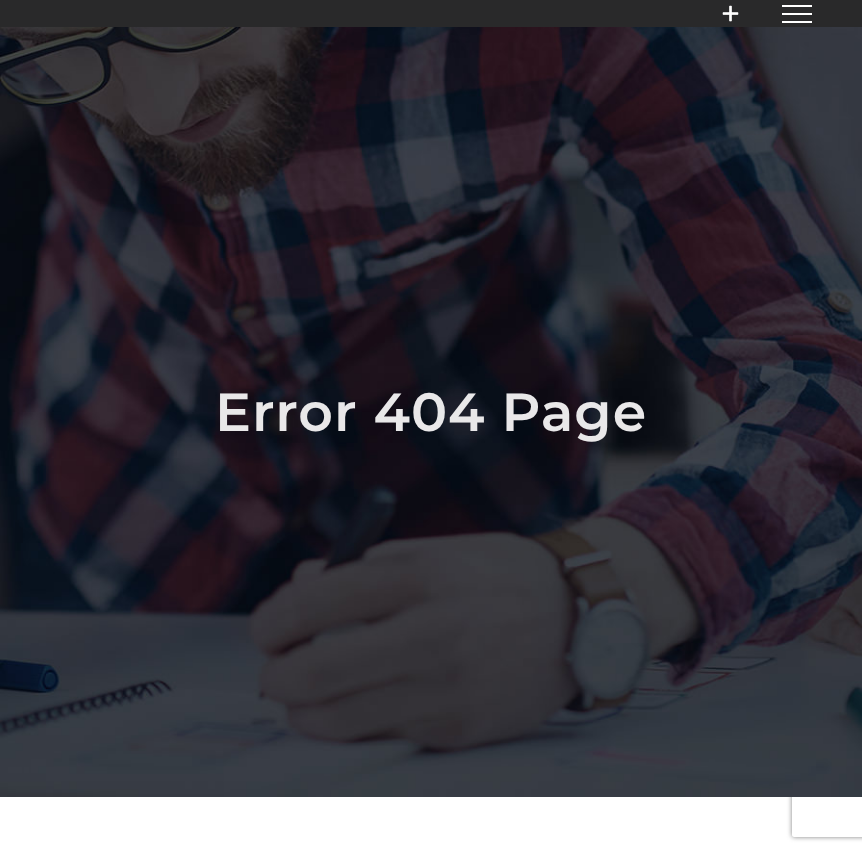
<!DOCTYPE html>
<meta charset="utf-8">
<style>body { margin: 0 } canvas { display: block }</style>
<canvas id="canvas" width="862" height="851"></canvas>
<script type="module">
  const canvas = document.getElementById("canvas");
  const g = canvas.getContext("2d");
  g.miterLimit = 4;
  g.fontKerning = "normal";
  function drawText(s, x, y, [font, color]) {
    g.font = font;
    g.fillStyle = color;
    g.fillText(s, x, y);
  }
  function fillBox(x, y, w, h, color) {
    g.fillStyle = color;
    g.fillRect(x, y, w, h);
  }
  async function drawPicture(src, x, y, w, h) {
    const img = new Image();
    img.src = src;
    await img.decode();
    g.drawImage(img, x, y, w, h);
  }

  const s1 = ["600 53.75px Montserrat", "#E9E8E9"];

  fillBox(0, 0, 862, 851, "#FFFFFF");
  fillBox(0, 0, 862, 27, "#29292A");
  await drawPicture("pic1.png", 722, 5, 17, 17);
  fillBox(782, 5, 30, 2, "#FFFFFF");
  fillBox(782, 13, 30, 2, "#FFFFFF");
  fillBox(782, 21, 30, 2, "#FFFFFF");
  g.save();
  g.beginPath();
  g.moveTo(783, 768);
  g.lineTo(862, 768);
  g.lineTo(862, 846);
  g.lineTo(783, 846);
  g.closePath();
  g.moveTo(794, 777);
  g.lineTo(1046, 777);
  g.bezierCurveTo(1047, 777, 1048, 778, 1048, 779);
  g.lineTo(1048, 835);
  g.bezierCurveTo(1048, 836, 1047, 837, 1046, 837);
  g.lineTo(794, 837);
  g.bezierCurveTo(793, 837, 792, 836, 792, 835);
  g.lineTo(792, 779);
  g.bezierCurveTo(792, 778, 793, 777, 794, 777);
  g.closePath();
  g.clip("evenodd");
  g.fillStyle = "#808080";
  g.filter = "blur(2.5px)";
  g.beginPath();
  g.roundRect(792, 777, 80, 60, 2);
  g.fill();
  g.filter = "none";
  g.restore();
  await drawPicture("pic2.png", 0, 27, 862, 770);
  g.letterSpacing = "1px";
  drawText("Error 404 Page", 215, 431, s1);
</script>
